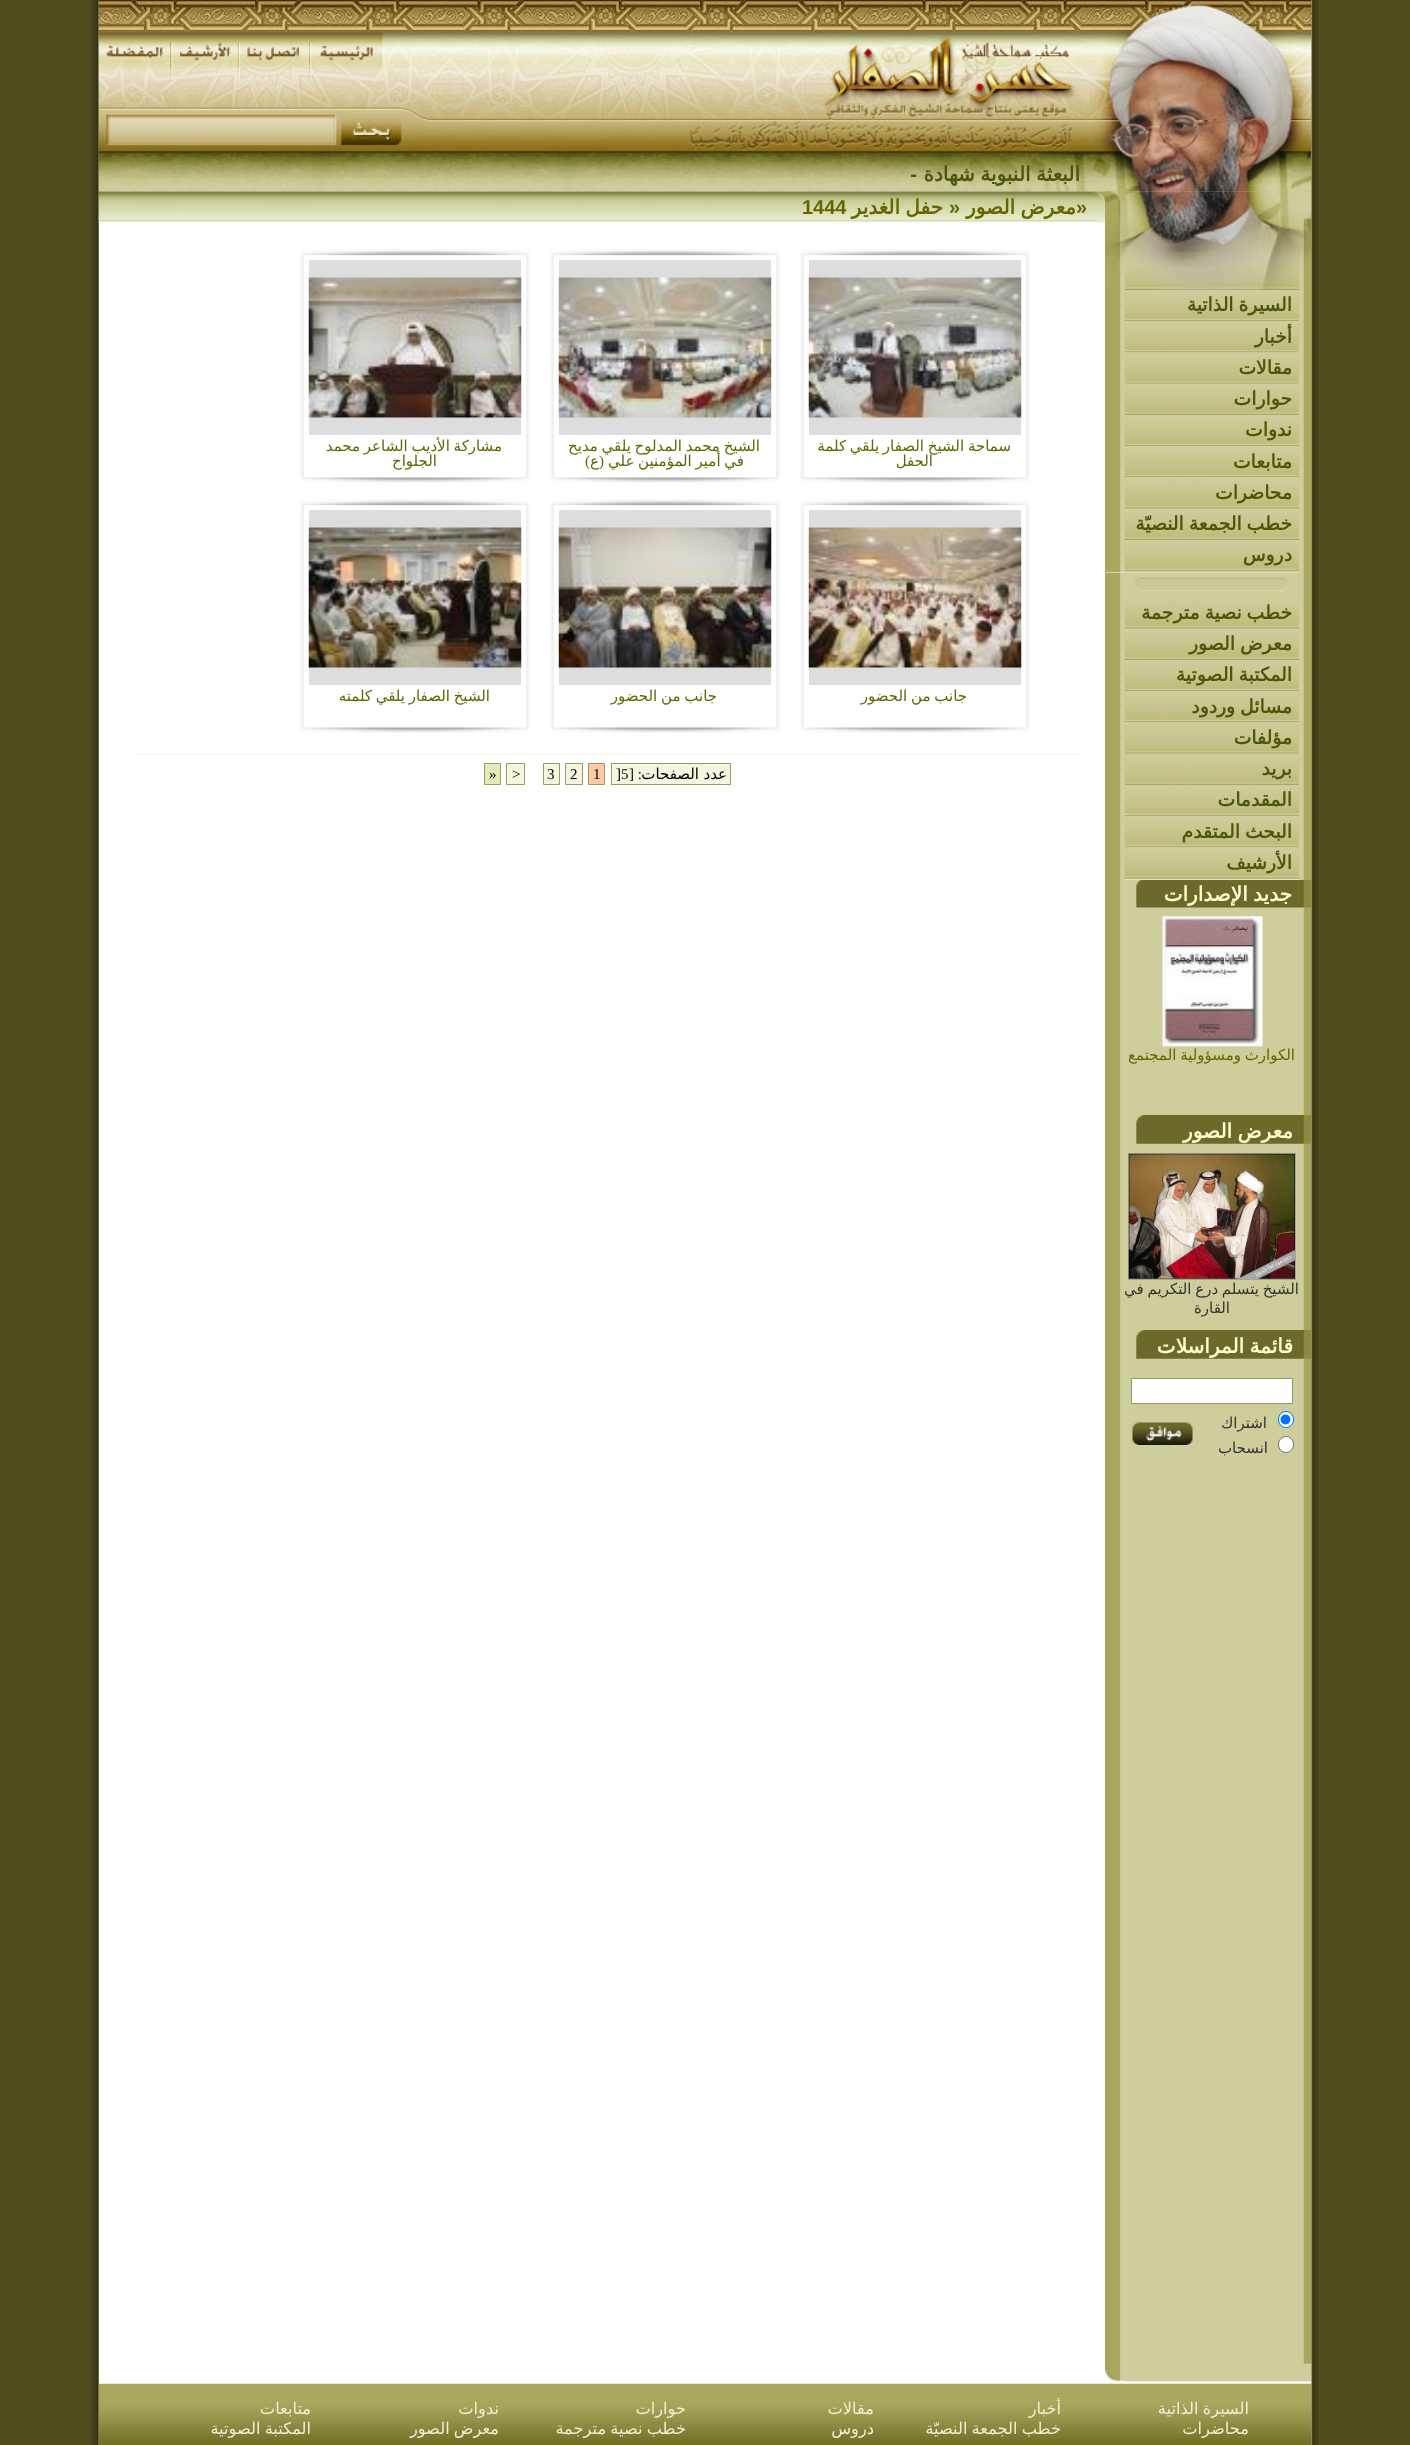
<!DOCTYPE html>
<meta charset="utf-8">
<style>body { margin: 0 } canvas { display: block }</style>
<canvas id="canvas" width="1410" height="2445"></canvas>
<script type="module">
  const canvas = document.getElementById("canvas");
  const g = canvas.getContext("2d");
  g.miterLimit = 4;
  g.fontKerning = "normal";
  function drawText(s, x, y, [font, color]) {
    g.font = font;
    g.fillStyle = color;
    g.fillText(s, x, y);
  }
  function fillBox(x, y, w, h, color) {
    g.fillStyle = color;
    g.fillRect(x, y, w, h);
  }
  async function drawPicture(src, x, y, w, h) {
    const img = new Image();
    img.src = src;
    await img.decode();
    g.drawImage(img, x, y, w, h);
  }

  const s1 = ["bold 20px DejaVu Sans", "#4C5708"];
  const s2 = ["bold 20px Liberation Sans", "#4C5708"];
  const s3 = ["bold 18.75px DejaVu Sans", "#4C5708"];
  const s4 = ["bold 20px DejaVu Sans", "#FFFECE"];
  const s5 = ["15px DejaVu Sans", "#666600"];
  const s6 = ["15px DejaVu Sans", "#333333"];
  const s7 = ["bold 20px Liberation Sans", "#666600"];
  const s8 = ["bold 20px DejaVu Sans", "#666600"];
  const s9 = ["15px Liberation Serif", "#666600"];
  const s10 = ["15px DejaVu Sans", "#000000"];
  const s11 = ["15px Liberation Serif", "#000000"];
  const s12 = ["16.25px DejaVu Sans", "#EFEED4"];

  fillBox(0, 0, 1410, 2445, "#4C4C1C");
  await drawPicture("pic1.png", 91, 0, 1228, 2445);
  await drawPicture("pic2.png", 1105, 0, 207, 2445);
  await drawPicture("pic8.png", 1105, 191, 207, 99);
  await drawPicture("pic25.png", 98, 191, 1007, 32);
  await drawPicture("pic3.png", 98, 0, 1214, 192);
  await drawPicture("pic4.png", 308, 32, 75, 53);
  await drawPicture("pic5.png", 237, 32, 72, 53);
  await drawPicture("pic6.png", 170, 32, 68, 53);
  await drawPicture("pic7.png", 98, 32, 72, 53);
  g.wordSpacing = "-1px";
  g.direction = "rtl";
  drawText("البعثة النبوية شهادة", 1080, 181, s1);
  g.wordSpacing = "0px";
  drawText("-", 917, 181, s2);
  fillBox(1105, 572, 20, 1, "#FFFFFF");
  await drawPicture("pic9.png", 1105, 290, 207, 283);
  await drawPicture("pic10.png", 1125, 290, 187, 33);
  g.wordSpacing = "-1px";
  drawText("السيرة الذاتية", 1292, 311, s3);
  await drawPicture("pic11.png", 1125, 321, 187, 33);
  g.wordSpacing = "0px";
  drawText("أخبار", 1292, 343, s3);
  await drawPicture("pic12.png", 1125, 352, 187, 33);
  drawText("مقالات", 1292, 374, s3);
  await drawPicture("pic13.png", 1125, 383, 187, 34);
  drawText("حوارات", 1292, 405, s3);
  await drawPicture("pic14.png", 1125, 415, 187, 33);
  drawText("ندوات", 1292, 436, s3);
  await drawPicture("pic11.png", 1125, 446, 187, 33);
  drawText("متابعات", 1292, 468, s3);
  await drawPicture("pic12.png", 1125, 477, 187, 33);
  drawText("محاضرات", 1292, 499, s3);
  await drawPicture("pic13.png", 1125, 508, 187, 34);
  g.wordSpacing = "-1px";
  drawText("خطب الجمعة النصيّة", 1292, 530, s3);
  await drawPicture("pic16.png", 1125, 571, 187, 26);
  await drawPicture("pic15.png", 1125, 540, 187, 33);
  g.wordSpacing = "0px";
  drawText("دروس", 1292, 561, s3);
  await drawPicture("pic17.png", 1105, 598, 207, 282);
  await drawPicture("pic18.png", 1125, 598, 187, 32);
  g.wordSpacing = "-1px";
  drawText("خطب نصية مترجمة", 1292, 619, s3);
  await drawPicture("pic13.png", 1125, 628, 187, 34);
  drawText("معرض الصور", 1292, 650, s3);
  await drawPicture("pic14.png", 1125, 660, 187, 33);
  drawText("المكتبة الصوتية", 1292, 681, s3);
  await drawPicture("pic11.png", 1125, 691, 187, 33);
  drawText("مسائل وردود", 1292, 713, s3);
  await drawPicture("pic12.png", 1125, 722, 187, 33);
  g.wordSpacing = "0px";
  drawText("مؤلفات", 1292, 744, s3);
  await drawPicture("pic13.png", 1125, 753, 187, 34);
  drawText("بريد", 1292, 775, s3);
  await drawPicture("pic14.png", 1125, 785, 187, 33);
  drawText("المقدمات", 1292, 806, s3);
  await drawPicture("pic11.png", 1125, 816, 187, 33);
  g.wordSpacing = "-1px";
  drawText("البحث المتقدم", 1292, 838, s3);
  await drawPicture("pic20.png", 1136, 878, 176, 30);
  await drawPicture("pic19.png", 1125, 847, 187, 33);
  g.wordSpacing = "0px";
  drawText("الأرشيف", 1292, 869, s3);
  g.wordSpacing = "-1px";
  drawText("جديد الإصدارات", 1292, 901, s4);
  await drawPicture("pic21.png", 1162, 916, 101, 131);
  drawText("الكوارث ومسؤولية المجتمع", 1295, 1060, s5);
  await drawPicture("pic22.png", 1136, 1115, 176, 29);
  drawText("معرض الصور", 1293, 1138, s4);
  g.strokeStyle = "#A3A3A3";
  g.strokeRect(1128.5, 1153.5, 167, 126);
  await drawPicture("pic23.png", 1128, 1153, 167, 126);
  drawText("الشيخ يتسلم درع التكريم في", 1299, 1294, s6);
  g.wordSpacing = "0px";
  drawText("القارة", 1230, 1313, s6);
  await drawPicture("pic22.png", 1136, 1330, 176, 29);
  g.wordSpacing = "-1px";
  drawText("قائمة المراسلات", 1293, 1353, s4);
  g.fillStyle = "#FFFFFF";
  g.beginPath();
  g.rect(1131.5, 1378.5, 161, 25);
  g.fill();
  g.strokeStyle = "#999966";
  g.stroke();
  g.beginPath();
  g.roundRect(1278.5, 1411.5, 15, 16, 7.5);
  g.fill();
  g.strokeStyle = "#0075FF";
  g.stroke();
  g.fillStyle = "#0075FF";
  g.beginPath();
  g.arc(1285.5, 1419.5, 5, 0, Math.PI * 2);
  g.fill();
  g.wordSpacing = "0px";
  drawText("اشتراك", 1267, 1428, s6);
  await drawPicture("pic24.png", 1132, 1422, 61, 23);
  g.fillStyle = "#FFFFFF";
  g.beginPath();
  g.roundRect(1278.5, 1436.5, 15, 16, 7.5);
  g.fill();
  g.strokeStyle = "#767676";
  g.stroke();
  drawText("انسحاب", 1268, 1453, s6);
  g.direction = "ltr";
  drawText("»", 1076, 214, s7);
  g.wordSpacing = "-1px";
  g.direction = "rtl";
  drawText("معرض الصور", 1076, 214, s8);
  g.wordSpacing = "0px";
  g.direction = "ltr";
  drawText("»", 949, 214, s7);
  g.wordSpacing = "-1px";
  g.direction = "rtl";
  drawText("حفل الغدير", 943, 214, s8);
  g.wordSpacing = "0px";
  g.direction = "ltr";
  drawText("1444", 802, 214, s7);
  await drawPicture("pic26.png", 800, 249, 230, 234);
  fillBox(809, 260, 212, 175, "#DDDDDD");
  await drawPicture("pic27.png", 808, 277, 214, 141);
  g.wordSpacing = "-1px";
  g.direction = "rtl";
  drawText("سماحة الشيخ الصفار يلقي كلمة", 1011, 451, s5);
  g.wordSpacing = "0px";
  drawText("الحفل", 933, 466, s5);
  await drawPicture("pic28.png", 550, 249, 230, 234);
  fillBox(559, 260, 212, 175, "#DDDDDD");
  await drawPicture("pic29.png", 558, 277, 214, 141);
  g.wordSpacing = "-1px";
  drawText("الشيخ محمد المدلوح يلقي مديح", 760, 451, s5);
  drawText("في أمير المؤمنين علي", 744, 466, s5);
  g.wordSpacing = "0px";
  drawText("(", 604, 466, s9);
  drawText("ع", 599, 466, s5);
  drawText(")", 590, 466, s9);
  await drawPicture("pic30.png", 300, 249, 230, 234);
  fillBox(309, 260, 212, 175, "#DDDDDD");
  await drawPicture("pic31.png", 308, 277, 214, 141);
  g.wordSpacing = "-1px";
  drawText("مشاركة الأديب الشاعر محمد", 502, 451, s5);
  g.wordSpacing = "0px";
  drawText("الجلواح", 437, 466, s5);
  await drawPicture("pic26.png", 800, 499, 230, 234);
  fillBox(809, 510, 212, 175, "#DDDDDD");
  await drawPicture("pic32.png", 808, 527, 214, 141);
  g.wordSpacing = "-1px";
  drawText("جانب من الحضور", 967, 701, s5);
  await drawPicture("pic28.png", 550, 499, 230, 234);
  fillBox(559, 510, 212, 175, "#DDDDDD");
  await drawPicture("pic33.png", 558, 527, 214, 141);
  drawText("جانب من الحضور", 717, 701, s5);
  await drawPicture("pic30.png", 300, 499, 230, 234);
  fillBox(309, 510, 212, 175, "#DDDDDD");
  await drawPicture("pic34.png", 308, 527, 214, 141);
  drawText("الشيخ الصفار يلقي كلمته", 490, 701, s5);
  fillBox(135, 754, 945, 1, "#F6F5DF");
  fillBox(629, 764, 101, 20, "#F6F5DF");
  g.wordSpacing = "0px";
  drawText("عدد", 727, 779, s10);
  fillBox(621, 763, 8, 22, "#F6F5DF");
  fillBox(621, 763, 110, 1, "#999966");
  fillBox(730, 763, 1, 22, "#999966");
  fillBox(629, 784, 102, 1, "#999966");
  drawText("الصفحات", 699, 779, s10);
  drawText(": [", 642, 779, s11);
  fillBox(612, 764, 9, 20, "#F6F5DF");
  g.direction = "ltr";
  drawText("]5", 616, 779, s11);
  fillBox(611, 763, 10, 1, "#999966");
  fillBox(611, 784, 10, 1, "#999966");
  fillBox(611, 763, 1, 22, "#999966");
  fillBox(621, 784, 8, 1, "#999966");
  g.fillStyle = "#FFC9A5";
  g.beginPath();
  g.rect(588.5, 763.5, 16, 21);
  g.fill();
  g.strokeStyle = "#999966";
  g.stroke();
  drawText("1", 593, 779, s11);
  g.fillStyle = "#F6F5DF";
  g.beginPath();
  g.rect(565.5, 763.5, 17, 21);
  g.fill();
  g.stroke();
  drawText("2", 570, 779, s11);
  g.fillStyle = "#F6F5DF";
  g.beginPath();
  g.rect(543.5, 763.5, 16, 21);
  g.fill();
  g.stroke();
  drawText("3", 547, 779, s11);
  g.fillStyle = "#F6F5DF";
  g.beginPath();
  g.rect(506.5, 763.5, 18, 21);
  g.fill();
  g.stroke();
  drawText(">", 512, 779, s11);
  g.fillStyle = "#E9E8BB";
  g.beginPath();
  g.rect(484.5, 763.5, 16, 21);
  g.fill();
  g.stroke();
  drawText("»", 489, 779, s11);
  fillBox(1105, 2364, 206, 20, "#FFFFFF");
  await drawPicture("pic35.png", 1105, 2363, 207, 21);
  await drawPicture("pic36.png", 98, 2383, 1214, 62);
  g.wordSpacing = "-1px";
  g.direction = "rtl";
  drawText("السيرة الذاتية", 1249, 2414, s12);
  g.wordSpacing = "0px";
  drawText("أخبار", 1061, 2414, s12);
  drawText("مقالات", 874, 2414, s12);
  drawText("حوارات", 686, 2414, s12);
  drawText("ندوات", 499, 2414, s12);
  drawText("متابعات", 311, 2414, s12);
  drawText("محاضرات", 1249, 2434, s12);
  g.wordSpacing = "-1px";
  drawText("خطب الجمعة النصيّة", 1061, 2434, s12);
  g.wordSpacing = "0px";
  drawText("دروس", 874, 2434, s12);
  g.wordSpacing = "-1px";
  drawText("خطب نصية مترجمة", 686, 2434, s12);
  drawText("معرض الصور", 499, 2434, s12);
  drawText("المكتبة الصوتية", 311, 2434, s12);
</script>
